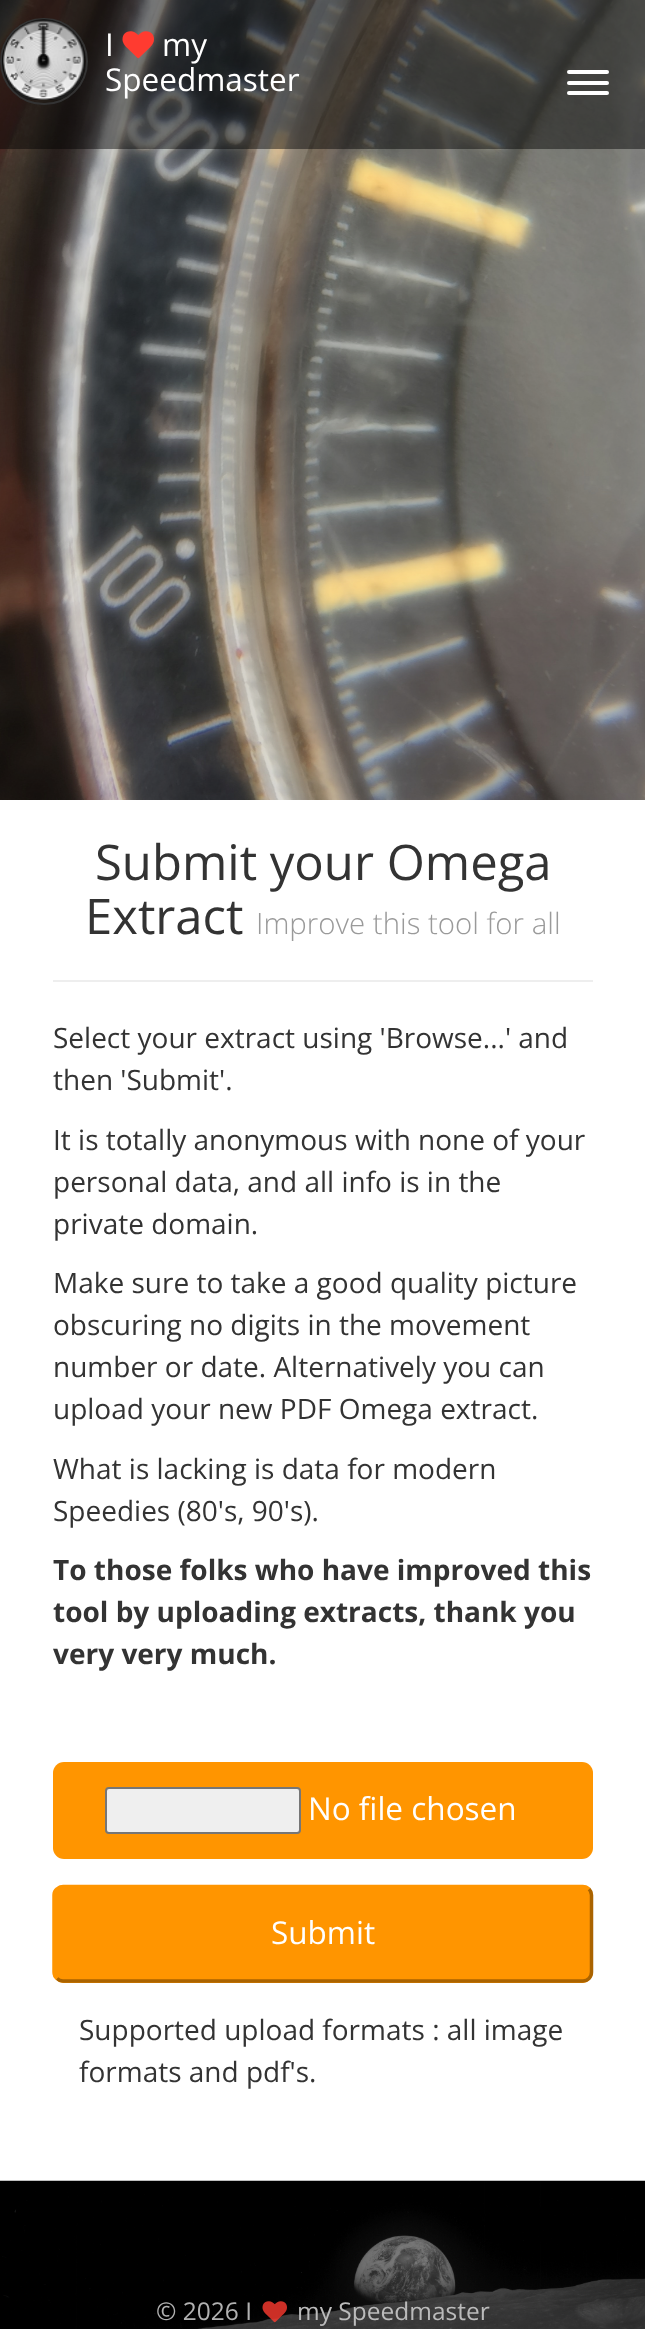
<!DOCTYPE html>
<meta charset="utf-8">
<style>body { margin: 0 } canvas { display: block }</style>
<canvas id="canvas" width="645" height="2329"></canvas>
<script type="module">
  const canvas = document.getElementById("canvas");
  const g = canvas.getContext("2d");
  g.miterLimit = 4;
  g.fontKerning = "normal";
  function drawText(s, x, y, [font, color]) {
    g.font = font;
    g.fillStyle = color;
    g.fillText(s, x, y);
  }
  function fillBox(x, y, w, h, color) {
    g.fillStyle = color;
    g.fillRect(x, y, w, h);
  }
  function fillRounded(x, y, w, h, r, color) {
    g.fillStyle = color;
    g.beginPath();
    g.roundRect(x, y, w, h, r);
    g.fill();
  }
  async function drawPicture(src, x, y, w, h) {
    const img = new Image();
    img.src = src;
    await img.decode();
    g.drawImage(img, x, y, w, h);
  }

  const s1 = ["31.5px Open Sans", "#FFFFFF"];
  const s2 = ["49px Open Sans", "#333333"];
  const s3 = ["300 29.4px Open Sans", "#9A9A9A"];
  const s4 = ["28px Open Sans", "#333333"];
  const s5 = ["bold 28px Open Sans", "#333333"];
  const s6 = ["24.5px Open Sans", "#B1B1B1"];
  const s7 = ["24.5px Open Sans", "#BBBBBB"];

  fillBox(0, 0, 645, 2329, "#FFFFFF");
  await drawPicture("pic1.png", 0, 0, 645, 800);
  await drawPicture("pic2.png", 0, 0, 645, 800);
  fillBox(0, 0, 645, 149, "rgba(0, 0, 0, 0.45)");
  g.beginPath();
  g.roundRect(1, 19, 86, 85, 42.5);
  g.strokeStyle = "#333333";
  g.lineWidth = 2;
  g.stroke();
  await drawPicture("pic3.png", 2, 19, 83, 81);
  drawText("I", 105, 56, s1);
  await drawPicture("pic4.png", 122, 31, 32, 28);
  drawText("my", 162, 56, s1);
  drawText("Speedmaster", 105, 91, s1);
  fillRounded(567, 70, 42, 4, 2, "#FFFFFF");
  fillRounded(567, 81, 42, 4, 2, "#FFFFFF");
  fillRounded(567, 91, 42, 4, 2, "#FFFFFF");
  drawText("Submit your Omega", 95, 880, s2);
  drawText("Extract", 85, 934, s2);
  drawText("Improve this tool for all", 256, 934, s3);
  fillBox(53, 980, 540, 2, "#EEEEEE");
  drawText("Select your extract using 'Browse...' and", 53, 1048, s4);
  drawText("then 'Submit'.", 53, 1090, s4);
  drawText("It is totally anonymous with none of your", 53, 1150, s4);
  drawText("personal data, and all info is in the", 53, 1192, s4);
  drawText("private domain.", 53, 1234, s4);
  drawText("Make sure to take a good quality picture", 53, 1293, s4);
  drawText("obscuring no digits in the movement", 53, 1335, s4);
  drawText("number or date. Alternatively you can", 53, 1377, s4);
  drawText("upload your new PDF Omega extract.", 53, 1419, s4);
  drawText("What is lacking is data for modern", 53, 1479, s4);
  drawText("Speedies (80's, 90's).", 53, 1521, s4);
  drawText("To those folks who have improved this", 53, 1580, s5);
  drawText("tool by uploading extracts, thank you", 53, 1622, s5);
  drawText("very very much.", 53, 1664, s5);
  fillRounded(53, 1762, 540, 97, 11, "#FF9500");
  g.fillStyle = "#EFEFEF";
  g.beginPath();
  g.roundRect(106, 1788, 194, 45, 3);
  g.fill();
  g.strokeStyle = "#767676";
  g.stroke();
  drawText("No file chosen", 308, 1820, s1);
  fillRounded(53, 1885, 540, 98, 11, "#FF9500");
  g.beginPath();
  g.moveTo(589, 1889);
  g.bezierCurveTo(590.5, 1890.5, 591.5, 1893, 591.5, 1895);
  g.lineTo(591.5, 1972);
  g.bezierCurveTo(591.5, 1974.5, 590.5, 1977, 589, 1978.5);
  g.bezierCurveTo(587.5, 1980, 585, 1981, 583, 1981);
  g.lineTo(63, 1981);
  g.bezierCurveTo(60.5, 1981, 58.5, 1980, 57, 1978.5);
  g.strokeStyle = "#AA6300";
  g.lineWidth = 3.5;
  g.stroke();
  g.beginPath();
  g.moveTo(57, 1978.5);
  g.bezierCurveTo(55, 1977, 54, 1974.5, 54, 1972);
  g.lineTo(54, 1895);
  g.bezierCurveTo(54, 1893, 55, 1890.5, 57, 1889);
  g.bezierCurveTo(58.5, 1887.5, 60.5, 1886.5, 63, 1886.5);
  g.lineTo(583, 1886.5);
  g.bezierCurveTo(585, 1886.5, 587.5, 1887.5, 589, 1889);
  g.strokeStyle = "#FF9500";
  g.stroke();
  drawText("Submit", 271, 1944, s1);
  drawText("Supported upload formats : all image", 79, 2040, s4);
  drawText("formats and pdf's.", 79, 2082, s4);
  await drawPicture("pic5.png", 0, 2180, 645, 149);
  drawText("© 2026 I", 156, 2320, s6);
  await drawPicture("pic6.png", 262, 2301, 25, 22);
  drawText("my Speedmaster", 297, 2320, s7);
</script>
